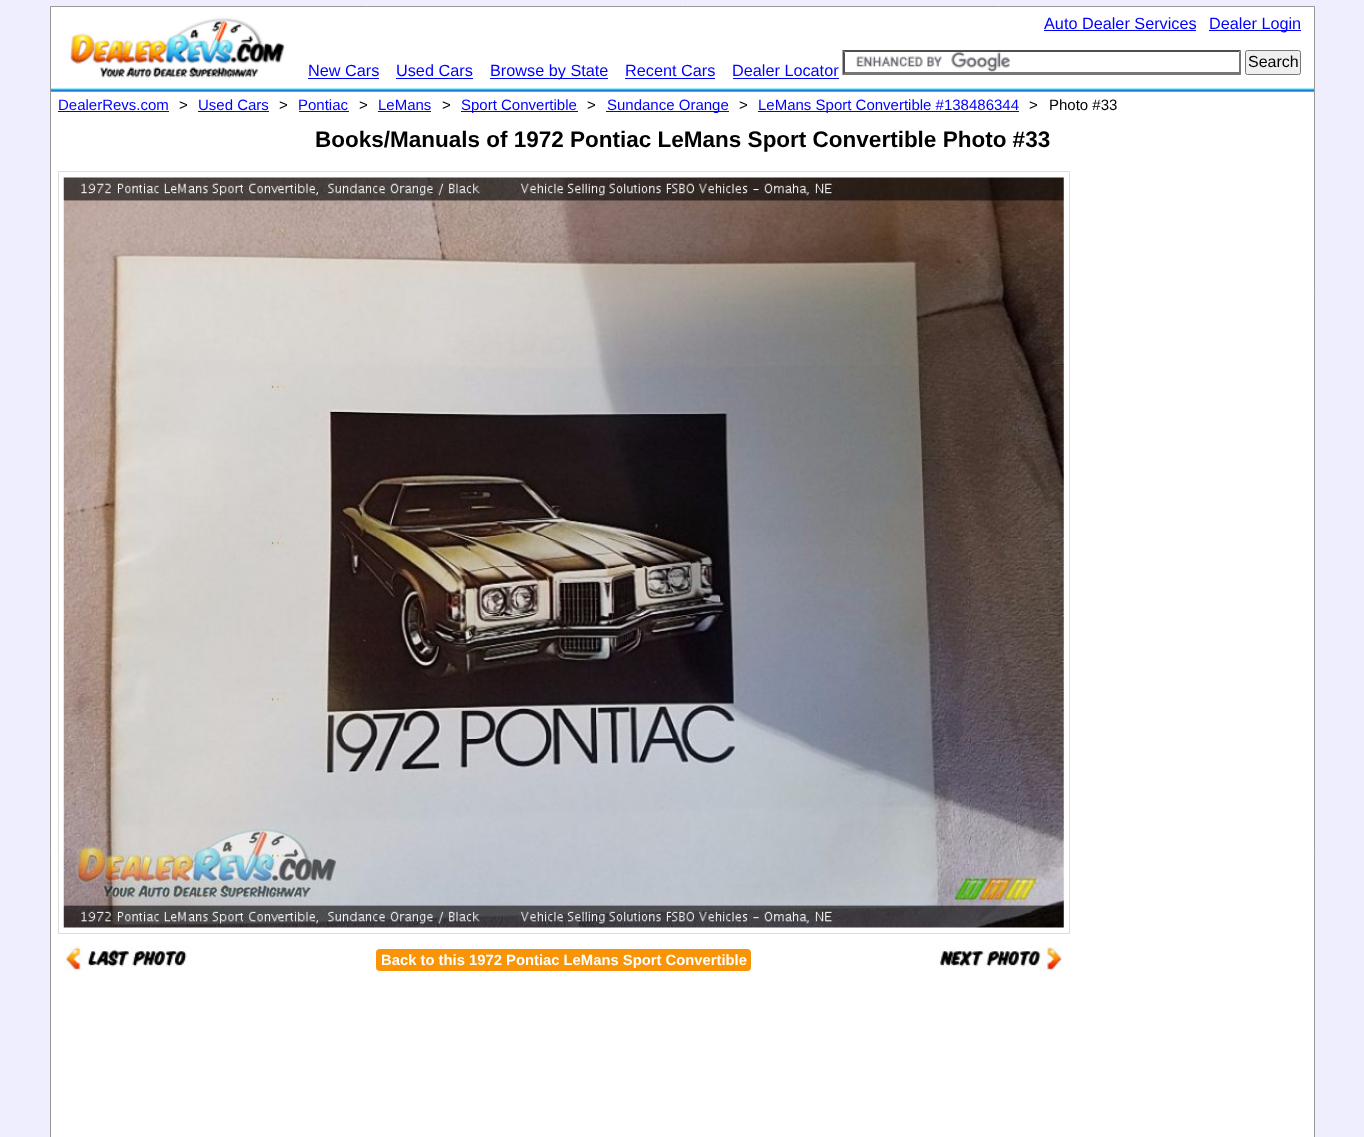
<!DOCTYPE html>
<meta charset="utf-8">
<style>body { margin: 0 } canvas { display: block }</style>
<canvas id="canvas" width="1364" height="1137"></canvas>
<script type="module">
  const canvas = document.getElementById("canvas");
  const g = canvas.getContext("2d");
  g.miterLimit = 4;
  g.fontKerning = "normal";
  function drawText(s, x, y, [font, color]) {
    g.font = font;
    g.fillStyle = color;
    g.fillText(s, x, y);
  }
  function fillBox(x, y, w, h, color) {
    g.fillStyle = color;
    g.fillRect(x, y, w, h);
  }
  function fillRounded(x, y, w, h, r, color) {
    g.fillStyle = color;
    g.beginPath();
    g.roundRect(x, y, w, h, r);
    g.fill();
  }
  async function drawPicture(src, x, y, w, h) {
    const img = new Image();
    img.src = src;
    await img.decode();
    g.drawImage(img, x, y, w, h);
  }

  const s1 = ["16.25px Liberation Sans", "#0000FF"];
  const s2 = ["16px Liberation Sans", "#000000"];
  const s3 = ["15px Liberation Sans", "#0000FF"];
  const s4 = ["15px Liberation Sans", "#000000"];
  const s5 = ["bold 22.5px Liberation Sans", "#000000"];
  const s6 = ["bold 14.8px Liberation Sans", "#FFFFFF"];

  fillBox(0, 0, 1364, 1137, "#EEEEFF");
  g.fillStyle = "#FFFFFF";
  g.beginPath();
  g.rect(50.5, 6.5, 1264, 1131);
  g.fill();
  g.strokeStyle = "#999999";
  g.stroke();
  await drawPicture("pic1.png", 70, 17, 215, 61);
  drawText("Auto Dealer Services", 1044, 29, s1);
  fillBox(1044, 30, 152, 1, "#0000FF");
  fillBox(1209, 30, 92, 1, "#0000FF");
  drawText("Dealer Login", 1209, 29, s1);
  await drawPicture("pic2.png", 856, 52, 154, 20);
  g.fillStyle = "#4F4F4F";
  g.beginPath();
  g.moveTo(842, 50);
  g.lineTo(1241, 50);
  g.lineTo(1239, 52);
  g.lineTo(845, 52);
  g.closePath();
  g.fill();
  g.fillStyle = "#767676";
  g.beginPath();
  g.moveTo(1241, 50);
  g.lineTo(1241, 75);
  g.lineTo(1239, 72.5);
  g.lineTo(1239, 52.5);
  g.closePath();
  g.fill();
  g.beginPath();
  g.moveTo(1241, 75);
  g.lineTo(842, 75);
  g.lineTo(845, 72);
  g.lineTo(1239, 72);
  g.closePath();
  g.fill();
  g.fillStyle = "#4F4F4F";
  g.beginPath();
  g.moveTo(842.5, 75);
  g.lineTo(842.5, 50);
  g.lineTo(845, 52.5);
  g.lineTo(845, 72.5);
  g.closePath();
  g.fill();
  g.fillStyle = "#EFEFEF";
  g.beginPath();
  g.roundRect(1245.5, 50.5, 55, 24, 2);
  g.fill();
  g.strokeStyle = "#767676";
  g.stroke();
  drawText("Search", 1248, 67, s2);
  drawText("New Cars", 308, 76, s1);
  fillBox(308, 78, 71, 1, "#0000FF");
  drawText("Used Cars", 396, 76, s1);
  fillBox(396, 78, 77, 1, "#0000FF");
  fillBox(490, 78, 118, 1, "#0000FF");
  drawText("Browse by State", 490, 76, s1);
  drawText("Recent Cars", 625, 76, s1);
  fillBox(625, 78, 90, 1, "#0000FF");
  drawText("Dealer Locator", 732, 76, s1);
  fillBox(733, 78, 106, 1, "#0000FF");
  fillBox(51, 89, 1263, 3, "#35B2EC");
  fillBox(51, 88, 1263, 1, "#9BF0F9");
  fillBox(51, 90, 1263, 1, "#1D7ED7");
  drawText("DealerRevs.com", 58, 110, s3);
  fillBox(58, 111, 111, 1, "#0000FF");
  drawText(">", 179, 110, s4);
  drawText("Used Cars", 198, 110, s3);
  fillBox(198, 111, 71, 1, "#0000FF");
  drawText(">", 279, 110, s4);
  drawText("Pontiac", 298, 110, s3);
  fillBox(299, 111, 50, 1, "#0000FF");
  drawText(">", 359, 110, s4);
  drawText("LeMans", 378, 110, s3);
  fillBox(378, 111, 53, 1, "#0000FF");
  drawText(">", 442, 110, s4);
  fillBox(461, 111, 117, 1, "#0000FF");
  drawText("Sport Convertible", 461, 110, s3);
  drawText(">", 587, 110, s4);
  fillBox(606, 111, 123, 1, "#0000FF");
  drawText("Sundance Orange", 607, 110, s3);
  drawText(">", 739, 110, s4);
  fillBox(758, 111, 261, 1, "#0000FF");
  drawText("LeMans Sport Convertible #138486344", 758, 110, s3);
  drawText(">", 1029, 110, s4);
  drawText("Photo #33", 1049, 110, s4);
  drawText("Books/Manuals of 1972 Pontiac LeMans Sport Convertible Photo #33", 315, 147, s5);
  g.strokeStyle = "#DDDDDD";
  g.strokeRect(58.5, 171.5, 1011, 762);
  await drawPicture("pic3.png", 63, 177, 1001, 751);
  await drawPicture("pic4.png", 64, 946, 123, 25);
  fillRounded(376, 949, 375, 22, 4, "#F89406");
  drawText("Back to this 1972 Pontiac LeMans Sport Convertible", 381, 965, s6);
  await drawPicture("pic5.png", 939, 947, 125, 24);
</script>
